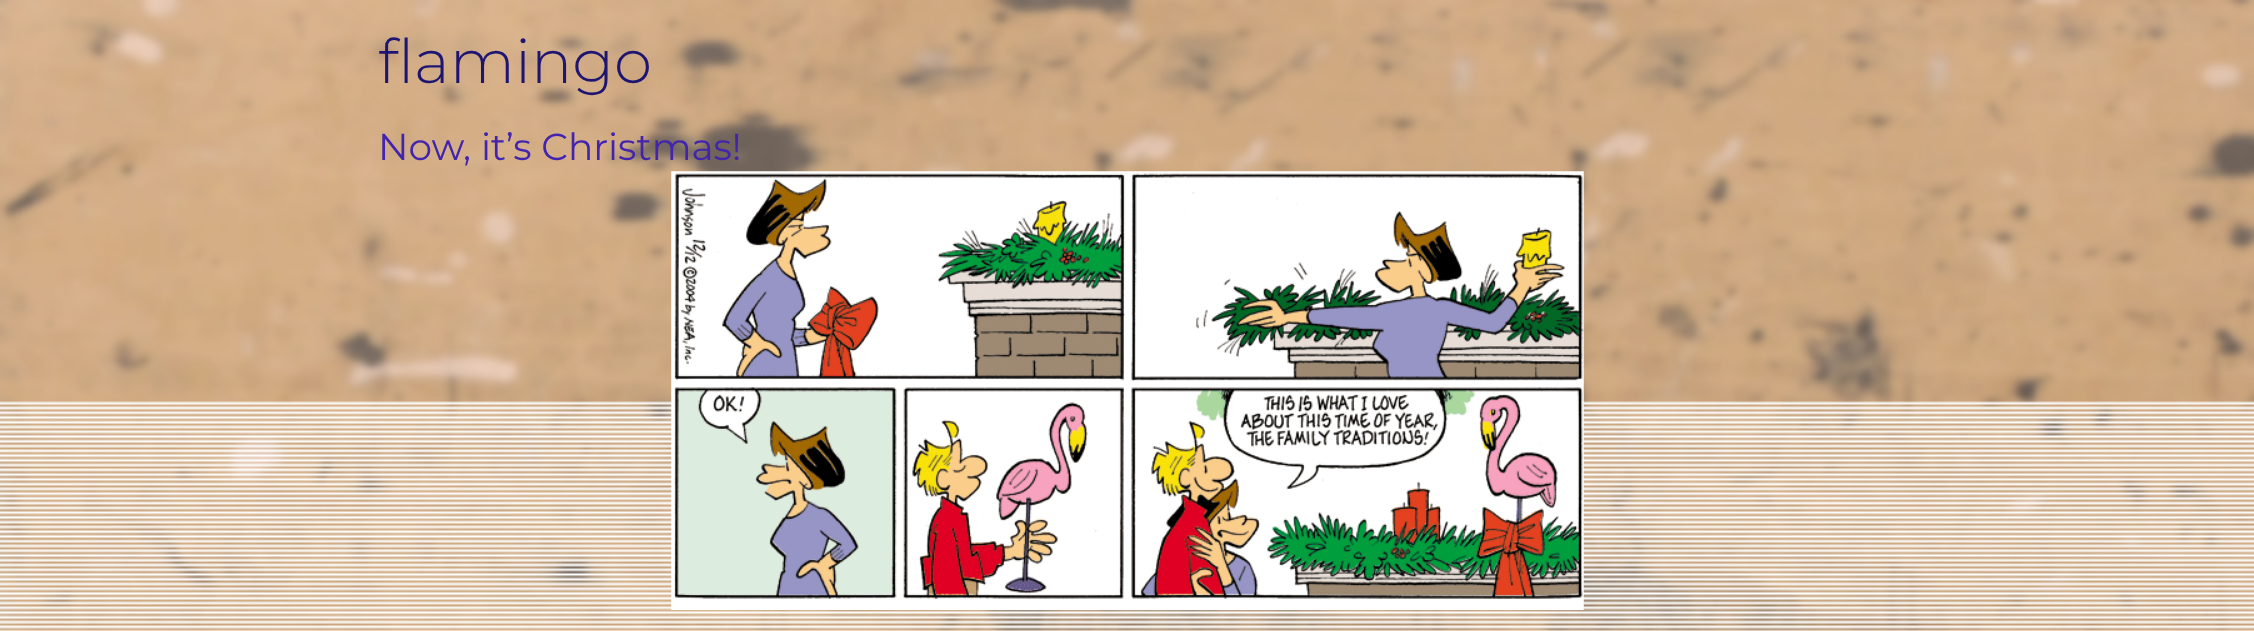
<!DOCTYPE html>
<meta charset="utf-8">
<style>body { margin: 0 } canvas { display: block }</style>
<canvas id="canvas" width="2254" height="631"></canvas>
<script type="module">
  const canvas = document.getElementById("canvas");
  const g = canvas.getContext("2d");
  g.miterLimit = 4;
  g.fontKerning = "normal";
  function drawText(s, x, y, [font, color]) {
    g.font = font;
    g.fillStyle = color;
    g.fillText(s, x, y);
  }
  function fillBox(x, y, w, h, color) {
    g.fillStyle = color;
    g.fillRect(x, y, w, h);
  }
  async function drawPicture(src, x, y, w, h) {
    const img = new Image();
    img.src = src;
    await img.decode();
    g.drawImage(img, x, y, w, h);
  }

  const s1 = ["300 61.25px Montserrat", "#1E1572"];
  const s2 = ["37.5px Montserrat", "#4224AF"];

  fillBox(0, 0, 2254, 631, "#FFFFFF");
  await drawPicture("pic1.png", 0, 0, 2254, 631);
  drawText("flamingo", 378, 83, s1);
  drawText("Now, it’s Christmas!", 378, 160, s2);
  await drawPicture("pic2.png", 671, 171, 913, 439);
</script>
